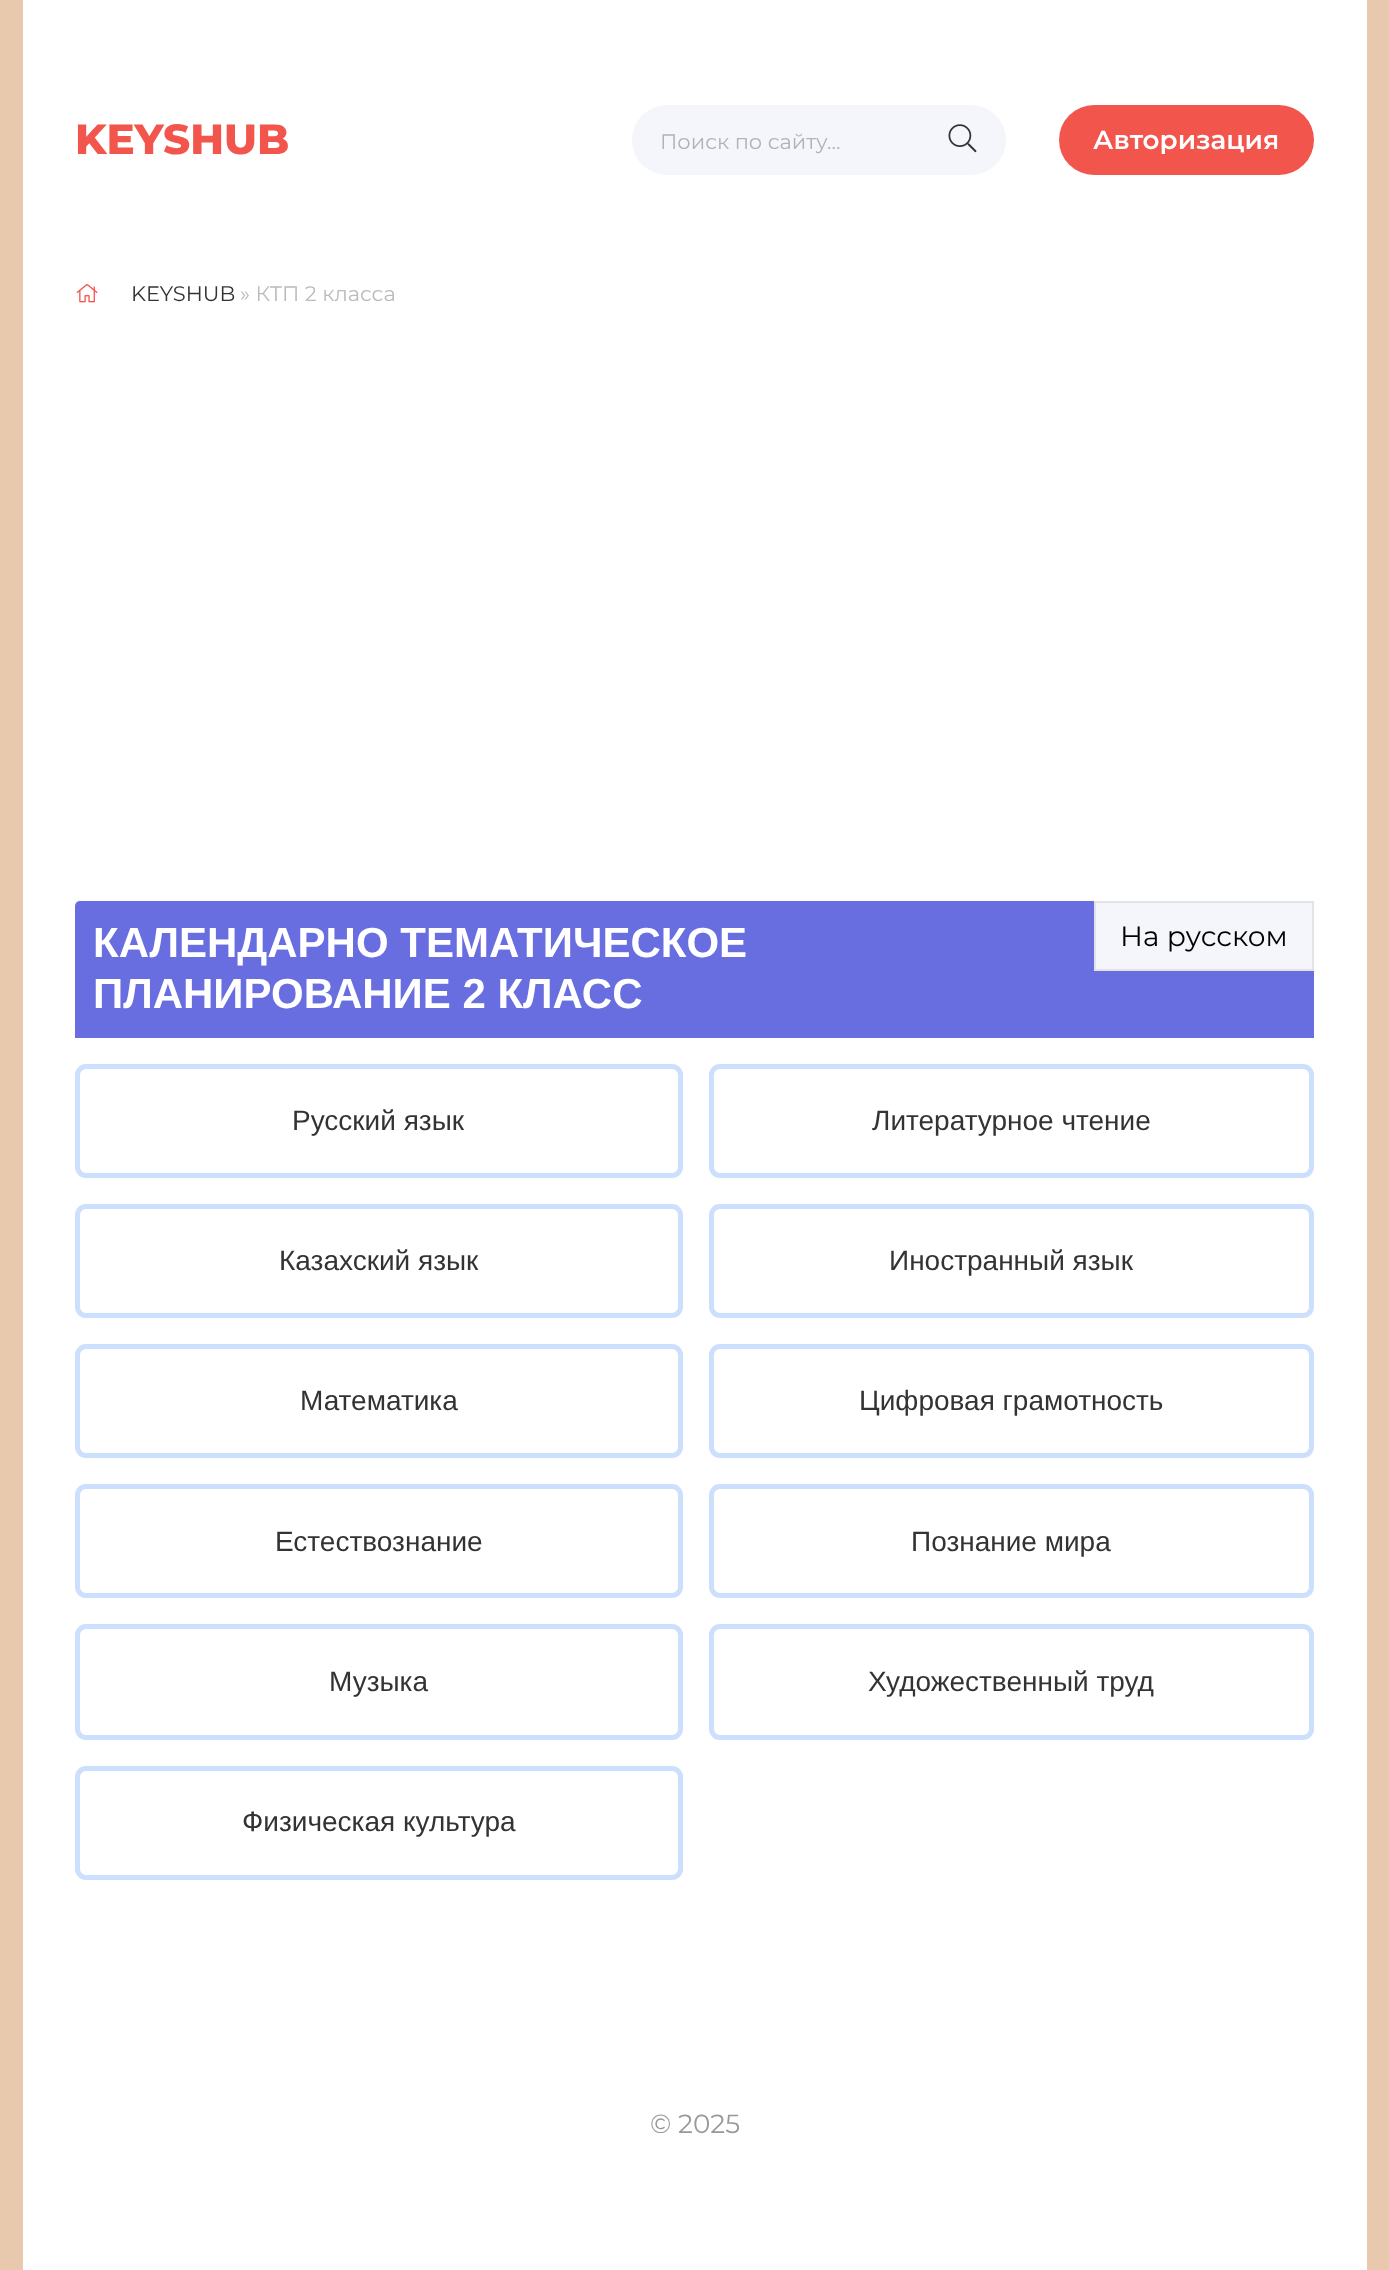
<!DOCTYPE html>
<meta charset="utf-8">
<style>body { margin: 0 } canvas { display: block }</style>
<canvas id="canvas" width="1389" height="2270"></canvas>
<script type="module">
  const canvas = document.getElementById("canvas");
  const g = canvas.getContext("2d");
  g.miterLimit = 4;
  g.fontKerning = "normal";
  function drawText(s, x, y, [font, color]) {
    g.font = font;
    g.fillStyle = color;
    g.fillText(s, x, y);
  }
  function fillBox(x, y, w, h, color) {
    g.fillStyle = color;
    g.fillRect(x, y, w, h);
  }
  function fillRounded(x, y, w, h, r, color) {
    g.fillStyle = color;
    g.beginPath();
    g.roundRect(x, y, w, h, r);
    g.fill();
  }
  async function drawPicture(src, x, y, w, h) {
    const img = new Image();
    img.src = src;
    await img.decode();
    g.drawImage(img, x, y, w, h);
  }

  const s1 = ["800 42px Montserrat", "#F2554C"];
  const s2 = ["21px Montserrat", "#B0B4B9"];
  const s3 = ["600 26.25px Montserrat", "#FFFFFF"];
  const s4 = ["21px Montserrat", "#333333"];
  const s5 = ["21px Montserrat", "#BBBBBB"];
  const s6 = ["bold 42px Liberation Sans", "#FFFFFF"];
  const s7 = ["28px Liberation Sans", "#333333"];
  const s8 = ["28px Montserrat", "#000000"];
  const s9 = ["26.25px Montserrat", "#999999"];

  fillBox(0, 0, 1389, 2270, "#E8C9AD");
  fillBox(23, 0, 1344, 2270, "#FFFFFF");
  drawText("KEYSHUB", 75, 154, s1);
  fillRounded(632, 105, 374, 70, 35, "#F5F6FB");
  drawText("Поиск по сайту...", 660, 149, s2);
  await drawPicture("pic1.png", 948, 124, 29, 29);
  fillRounded(1059, 105, 255, 70, 35, "#F2554C");
  drawText("Авторизация", 1093, 149, s3);
  await drawPicture("pic2.png", 76, 284, 22, 19);
  drawText("KEYSHUB", 131, 301, s4);
  drawText("» КТП 2 класса", 240, 301, s5);
  g.fillStyle = "#686DE0";
  g.beginPath();
  g.roundRect(75, 901, 1239, 137, [5, 5, 0, 0]);
  g.fill();
  drawText("КАЛЕНДАРНО ТЕМАТИЧЕСКОЕ", 93, 957, s6);
  drawText("ПЛАНИРОВАНИЕ 2 КЛАСС", 93, 1008, s6);
  g.beginPath();
  g.roundRect(77.5, 1066.5, 603, 109, 8.5);
  g.strokeStyle = "#CCDFFD";
  g.lineWidth = 5;
  g.stroke();
  drawText("Русский язык", 292, 1130, s7);
  g.beginPath();
  g.roundRect(711.5, 1066.5, 600, 109, 8.5);
  g.stroke();
  drawText("Литературное чтение", 872, 1130, s7);
  g.beginPath();
  g.roundRect(77.5, 1206.5, 603, 109, 8.5);
  g.stroke();
  drawText("Казахский язык", 279, 1270, s7);
  g.beginPath();
  g.roundRect(711.5, 1206.5, 600, 109, 8.5);
  g.stroke();
  drawText("Иностранный язык", 889, 1270, s7);
  g.beginPath();
  g.roundRect(77.5, 1346.5, 603, 109, 8.5);
  g.stroke();
  drawText("Математика", 300, 1410, s7);
  g.beginPath();
  g.roundRect(711.5, 1346.5, 600, 109, 8.5);
  g.stroke();
  drawText("Цифровая грамотность", 859, 1410, s7);
  g.beginPath();
  g.roundRect(77.5, 1486.5, 603, 109, 8.5);
  g.stroke();
  drawText("Естествознание", 275, 1551, s7);
  g.beginPath();
  g.roundRect(711.5, 1486.5, 600, 109, 8.5);
  g.stroke();
  drawText("Познание мира", 911, 1551, s7);
  g.beginPath();
  g.roundRect(77.5, 1626.5, 603, 111, 8.5);
  g.stroke();
  drawText("Музыка", 329, 1691, s7);
  g.beginPath();
  g.roundRect(711.5, 1626.5, 600, 111, 8.5);
  g.stroke();
  drawText("Художественный труд", 868, 1691, s7);
  g.beginPath();
  g.roundRect(77.5, 1768.5, 603, 109, 8.5);
  g.stroke();
  drawText("Физическая культура", 242, 1831, s7);
  g.fillStyle = "#F5F6FB";
  g.beginPath();
  g.rect(1095, 902, 218, 68);
  g.fill();
  g.strokeStyle = "#E3E3E3";
  g.lineWidth = 2;
  g.stroke();
  drawText("На русском", 1120, 946, s8);
  drawText("© 2025", 650, 2133, s9);
</script>
